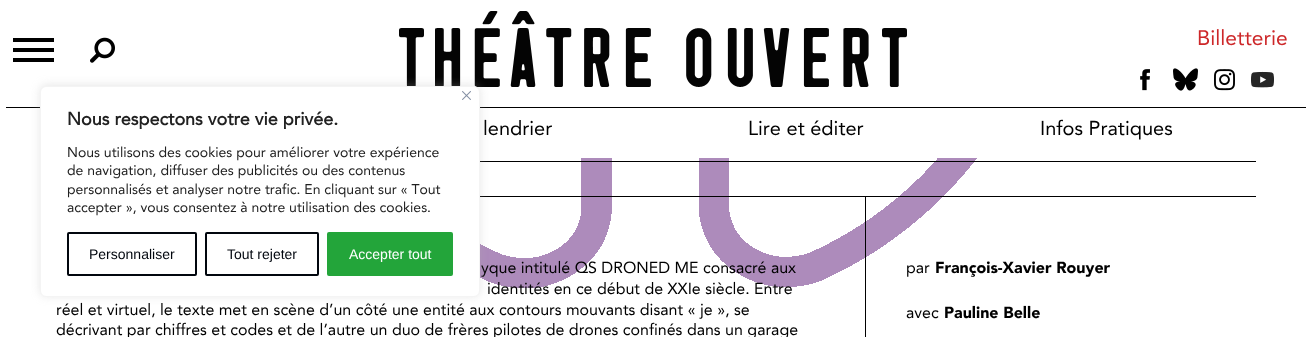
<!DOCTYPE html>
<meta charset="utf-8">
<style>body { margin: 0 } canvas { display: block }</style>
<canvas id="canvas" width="1312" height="337"></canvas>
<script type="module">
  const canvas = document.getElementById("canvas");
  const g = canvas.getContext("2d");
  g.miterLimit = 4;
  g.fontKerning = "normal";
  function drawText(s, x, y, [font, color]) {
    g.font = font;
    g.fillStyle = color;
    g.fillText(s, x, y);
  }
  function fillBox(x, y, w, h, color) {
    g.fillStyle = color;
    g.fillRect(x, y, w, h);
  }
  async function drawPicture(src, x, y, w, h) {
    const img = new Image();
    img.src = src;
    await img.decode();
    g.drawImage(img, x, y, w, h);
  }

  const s1 = ["21px Avenir", "#CD2729"];
  const s2 = ["20px Avenir", "#000000"];
  const s3 = ["16px Avenir", "#000000"];
  const s4 = ["900 16px Avenir", "#000000"];
  const s5 = ["bold 18px Avenir", "#212121"];
  const s6 = ["14px Avenir", "#212121"];
  const s7 = ["14px Liberation Sans", "#01060E"];
  const s8 = ["14px Liberation Sans", "#FFFFFF"];

  fillBox(0, 0, 1312, 337, "#FFFFFF");
  await drawPicture("pic1.png", 480, 158, 497, 130);
  fillBox(6, 107, 1300, 1, "#000000");
  fillBox(13, 48, 41, 4, "#000000");
  fillBox(13, 38, 41, 4, "#000000");
  fillBox(13, 58, 41, 4, "#000000");
  await drawPicture("pic2.png", 90, 37, 25, 26);
  await drawPicture("pic3.png", 399, 11, 508, 76);
  drawText("Billetterie", 1197, 45, s1);
  await drawPicture("pic4.png", 1140, 69, 10, 22);
  await drawPicture("pic5.png", 1173, 68, 25, 23);
  await drawPicture("pic6.png", 1214, 69, 21, 22);
  await drawPicture("pic7.png", 1251, 71, 23, 17);
  drawText("lendrier", 483, 135, s2);
  drawText("Lire et éditer", 748, 135, s2);
  drawText("Infos Pratiques", 1040, 135, s2);
  fillBox(480, 161, 776, 1, "#000000");
  fillBox(480, 196, 776, 1, "#000000");
  drawText("yque intitulé QS DRONED ME consacré aux", 481, 273, s3);
  drawText("identités en ce début de XXIe siècle. Entre", 487, 294, s3);
  drawText("réel et virtuel, le texte met en scène d’un côté une entité aux contours mouvants disant « je », se", 56, 315, s3);
  drawText("décrivant par chiffres et codes et de l’autre un duo de frères pilotes de drones confinés dans un garage", 56, 335, s3);
  fillBox(865, 197, 1, 140, "#000000");
  drawText("par", 906, 273, s3);
  drawText("François-Xavier Rouyer", 935, 273, s4);
  drawText("avec", 906, 318, s3);
  drawText("Pauline Belle", 944, 318, s4);
  g.fillStyle = "rgba(172, 171, 171, 0.3)";
  g.filter = "blur(5px)";
  g.beginPath();
  g.roundRect(40, 85, 440, 211, 6);
  g.fill();
  g.filter = "none";
  g.fillStyle = "#FFFFFF";
  g.beginPath();
  g.roundRect(40.5, 86.5, 439, 210, 5.5);
  g.fill();
  g.strokeStyle = "#F4F4F4";
  g.stroke();
  await drawPicture("pic8.png", 462, 91, 9, 9);
  drawText("Nous respectons votre vie privée.", 67, 125, s5);
  drawText("Nous utilisons des cookies pour améliorer votre expérience", 67, 157, s6);
  drawText("de navigation, diffuser des publicités ou des contenus", 67, 175, s6);
  drawText("personnalisés et analyser notre trafic. En cliquant sur « Tout", 67, 194, s6);
  drawText("accepter », vous consentez à notre utilisation des cookies.", 67, 212, s6);
  g.beginPath();
  g.roundRect(68, 233, 128, 42, 1);
  g.strokeStyle = "#01060E";
  g.lineWidth = 2;
  g.stroke();
  drawText("Personnaliser", 89, 259, s7);
  g.beginPath();
  g.roundRect(206, 233, 112, 42, 1);
  g.stroke();
  drawText("Tout rejeter", 227, 259, s7);
  g.fillStyle = "#23A53A";
  g.beginPath();
  g.roundRect(328, 233, 124, 42, 1);
  g.fill();
  g.strokeStyle = "#23A53A";
  g.stroke();
  drawText("Accepter tout", 349, 259, s8);
</script>
